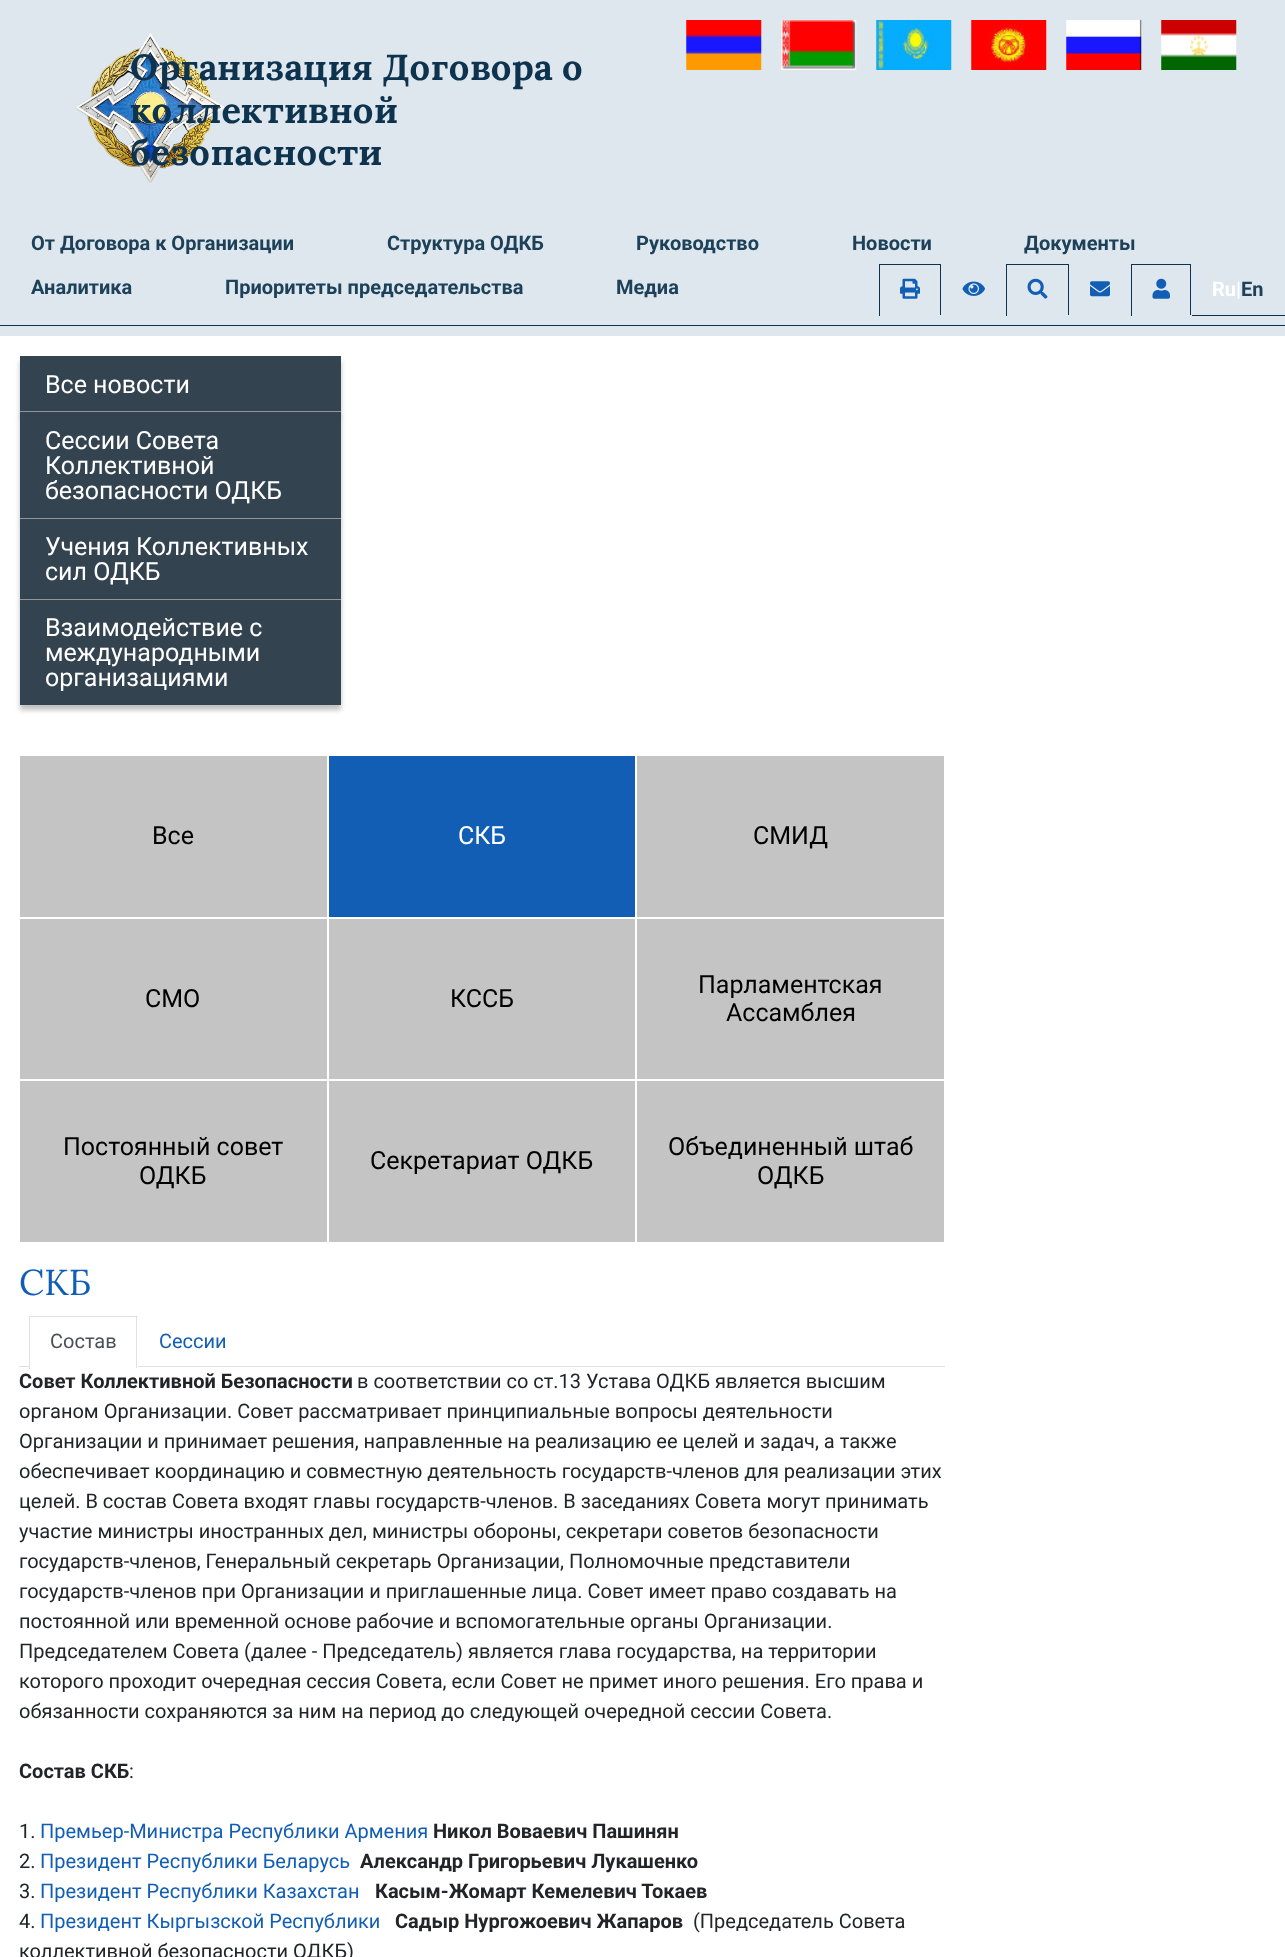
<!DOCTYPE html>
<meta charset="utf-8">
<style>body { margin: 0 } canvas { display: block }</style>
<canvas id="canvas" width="1285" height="1957"></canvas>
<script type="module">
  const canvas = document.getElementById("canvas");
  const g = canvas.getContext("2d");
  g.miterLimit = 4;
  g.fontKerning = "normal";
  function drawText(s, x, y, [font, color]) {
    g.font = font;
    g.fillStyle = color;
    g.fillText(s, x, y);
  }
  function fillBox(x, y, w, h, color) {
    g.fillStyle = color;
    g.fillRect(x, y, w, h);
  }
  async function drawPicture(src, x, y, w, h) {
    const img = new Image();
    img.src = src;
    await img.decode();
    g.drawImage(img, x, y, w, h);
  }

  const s1 = ["bold 36.25px Lora", "#0D334E"];
  const s2 = ["bold 20px Roboto", "#1D4159"];
  const s3 = ["bold 20px Roboto", "#FFFFFF"];
  const s4 = ["25px Roboto", "#FFFFFF"];
  const s5 = ["25px Roboto", "#000000"];
  const s6 = ["36px Lora", "#125EB4"];
  const s7 = ["20px Roboto", "#495057"];
  const s8 = ["20px Roboto", "#125EB4"];
  const s9 = ["bold 20px Roboto", "#212529"];
  const s10 = ["20px Roboto", "#212529"];

  fillBox(0, 0, 1285, 1957, "#FFFFFF");
  fillBox(0, 0, 1285, 336, "#DEE7EE");
  await drawPicture("pic1.png", 686, 20, 76, 50);
  await drawPicture("pic2.png", 781, 20, 76, 50);
  await drawPicture("pic3.png", 876, 20, 76, 50);
  await drawPicture("pic4.png", 971, 20, 76, 50);
  await drawPicture("pic5.png", 1066, 20, 76, 50);
  await drawPicture("pic6.png", 1161, 20, 76, 50);
  await drawPicture("pic7.png", 74, 32, 151, 151);
  drawText("Организация Договора о", 130, 80, s1);
  drawText("коллективной", 130, 123, s1);
  drawText("безопасности", 130, 165, s1);
  fillBox(0, 325, 1285, 1, "#0D334E");
  drawText("От Договора к Организации", 31, 250, s2);
  drawText("Структура ОДКБ", 387, 250, s2);
  drawText("Руководство", 636, 250, s2);
  drawText("Новости", 852, 250, s2);
  drawText("Документы", 1024, 250, s2);
  drawText("Аналитика", 31, 294, s2);
  drawText("Приоритеты председательства", 225, 294, s2);
  drawText("Медиа", 616, 294, s2);
  fillBox(879, 324, 406, 1, "#DEE2E6");
  fillBox(879, 264, 62, 1, "#0D334E");
  fillBox(940, 264, 1, 52, "#0D334E");
  fillBox(940, 315, 1, 1, "#DEE7EE");
  fillBox(879, 264, 1, 52, "#0D334E");
  await drawPicture("pic8.png", 900, 278, 20, 21);
  await drawPicture("pic9.png", 962, 281, 23, 15);
  fillBox(1006, 264, 63, 1, "#0D334E");
  fillBox(1068, 264, 1, 52, "#0D334E");
  fillBox(1068, 315, 1, 1, "#DEE7EE");
  fillBox(1006, 264, 1, 52, "#0D334E");
  await drawPicture("pic10.png", 1027, 278, 21, 21);
  await drawPicture("pic11.png", 1090, 281, 20, 16);
  fillBox(1131, 264, 60, 1, "#0D334E");
  fillBox(1190, 264, 1, 52, "#0D334E");
  fillBox(1190, 315, 1, 1, "#DEE7EE");
  fillBox(1131, 264, 1, 52, "#0D334E");
  await drawPicture("pic12.png", 1152, 278, 18, 21);
  fillBox(1191, 315, 94, 1, "#0D334E");
  fillBox(1191, 315, 1, 1, "#DEE7EE");
  drawText("Ru|", 1212, 296, s3);
  drawText("En", 1241, 296, s2);
  g.fillStyle = "rgba(0, 0, 0, 0.25)";
  g.filter = "blur(2.5px)";
  g.beginPath();
  g.rect(20, 361, 321, 57);
  g.fill();
  g.filter = "none";
  fillBox(20, 356, 321, 55, "#344350");
  drawText("Все новости", 45, 393, s4);
  g.fillStyle = "rgba(0, 0, 0, 0.25)";
  g.filter = "blur(2.5px)";
  g.beginPath();
  g.rect(20, 416, 321, 108);
  g.fill();
  g.filter = "none";
  fillBox(20, 412, 321, 106, "#344350");
  fillBox(20, 411, 321, 1, "#949599");
  drawText("Сессии Совета", 45, 449, s4);
  drawText("Коллективной", 45, 474, s4);
  drawText("безопасности ОДКБ", 45, 499, s4);
  g.fillStyle = "rgba(0, 0, 0, 0.25)";
  g.filter = "blur(2.5px)";
  g.beginPath();
  g.rect(20, 523, 321, 82);
  g.fill();
  g.filter = "none";
  fillBox(20, 519, 321, 80, "#344350");
  fillBox(20, 518, 321, 1, "#949599");
  drawText("Учения Коллективных", 45, 555, s4);
  drawText("сил ОДКБ", 45, 580, s4);
  g.fillStyle = "rgba(0, 0, 0, 0.25)";
  g.filter = "blur(2.5px)";
  g.beginPath();
  g.rect(20, 604, 321, 106);
  g.fill();
  g.filter = "none";
  fillBox(20, 600, 321, 105, "#344350");
  fillBox(20, 599, 321, 1, "#949599");
  drawText("Взаимодействие с", 45, 636, s4);
  drawText("международными", 45, 661, s4);
  drawText("организациями", 45, 686, s4);
  fillBox(20, 756, 307, 161, "#C4C4C4");
  drawText("Все", 152, 844, s5);
  fillBox(329, 756, 306, 161, "#125EB4");
  drawText("СКБ", 458, 844, s4);
  fillBox(637, 756, 307, 161, "#C4C4C4");
  drawText("СМИД", 753, 844, s5);
  fillBox(20, 919, 307, 160, "#C4C4C4");
  drawText("СМО", 145, 1007, s5);
  fillBox(329, 919, 306, 160, "#C4C4C4");
  drawText("КССБ", 450, 1007, s5);
  fillBox(637, 919, 307, 160, "#C4C4C4");
  drawText("Парламентская", 698, 993, s5);
  drawText("Ассамблея", 726, 1021, s5);
  fillBox(20, 1081, 307, 161, "#C4C4C4");
  drawText("Постоянный совет", 63, 1155, s5);
  drawText("ОДКБ", 139, 1184, s5);
  fillBox(329, 1081, 306, 161, "#C4C4C4");
  drawText("Секретариат ОДКБ", 370, 1169, s5);
  fillBox(637, 1081, 307, 161, "#C4C4C4");
  drawText("Объединенный штаб", 668, 1155, s5);
  drawText("ОДКБ", 757, 1184, s5);
  drawText("СКБ", 19, 1295, s6);
  fillBox(19, 1366, 926, 1, "#DEE2E6");
  fillBox(30, 1366, 108, 1, "#FFFFFF");
  fillBox(29, 1316, 109, 1, "#DEE2E6");
  fillBox(136, 1316, 1, 53, "#DEE2E6");
  fillBox(136, 1368, 2, 1, "#FFFFFF");
  fillBox(29, 1316, 1, 53, "#DEE2E6");
  drawText("Состав", 50, 1348, s7);
  drawText("Сессии", 159, 1348, s8);
  drawText("Совет Коллективной Безопасности", 19, 1388, s9);
  drawText("в соответствии со ст.13 Устава ОДКБ является высшим", 357, 1388, s10);
  drawText("органом Организации. Совет рассматривает принципиальные вопросы деятельности", 19, 1418, s10);
  drawText("Организации и принимает решения, направленные на реализацию ее целей и задач, а также", 19, 1448, s10);
  drawText("обеспечивает координацию и совместную деятельность государств-членов для реализации этих", 19, 1478, s10);
  drawText("целей. В состав Совета входят главы государств-членов. В заседаниях Совета могут принимать", 19, 1508, s10);
  drawText("участие министры иностранных дел, министры обороны, секретари советов безопасности", 19, 1538, s10);
  drawText("государств-членов, Генеральный секретарь Организации, Полномочные представители", 19, 1568, s10);
  drawText("государств-членов при Организации и приглашенные лица. Совет имеет право создавать на", 19, 1598, s10);
  drawText("постоянной или временной основе рабочие и вспомогательные органы Организации.", 19, 1628, s10);
  drawText("Председателем Совета (далее - Председатель) является глава государства, на территории", 19, 1658, s10);
  drawText("которого проходит очередная сессия Совета, если Совет не примет иного решения. Его права и", 19, 1688, s10);
  drawText("обязанности сохраняются за ним на период до следующей очередной сессии Совета.", 19, 1718, s10);
  drawText("Состав СКБ", 19, 1778, s9);
  drawText(":", 129, 1778, s10);
  drawText("1.", 19, 1838, s10);
  drawText("Премьер-Министра Республики Армения", 40, 1838, s8);
  drawText("Никол Воваевич Пашинян", 433, 1838, s9);
  drawText("2.", 19, 1868, s10);
  drawText("Президент Республики Беларусь", 40, 1868, s8);
  drawText("Александр Григорьевич Лукашенко", 360, 1868, s9);
  drawText("3.", 19, 1898, s10);
  drawText("Президент Республики Казахстан", 40, 1898, s8);
  drawText("Касым-Жомарт Кемелевич Токаев", 375, 1898, s9);
  drawText("4.", 19, 1928, s10);
  drawText("Президент Кыргызской Республики", 40, 1928, s8);
  drawText("Садыр Нургожоевич Жапаров", 395, 1928, s9);
  drawText("(Председатель Совета", 693, 1928, s10);
  drawText("коллективной безопасности ОДКБ)", 19, 1958, s10);
</script>
